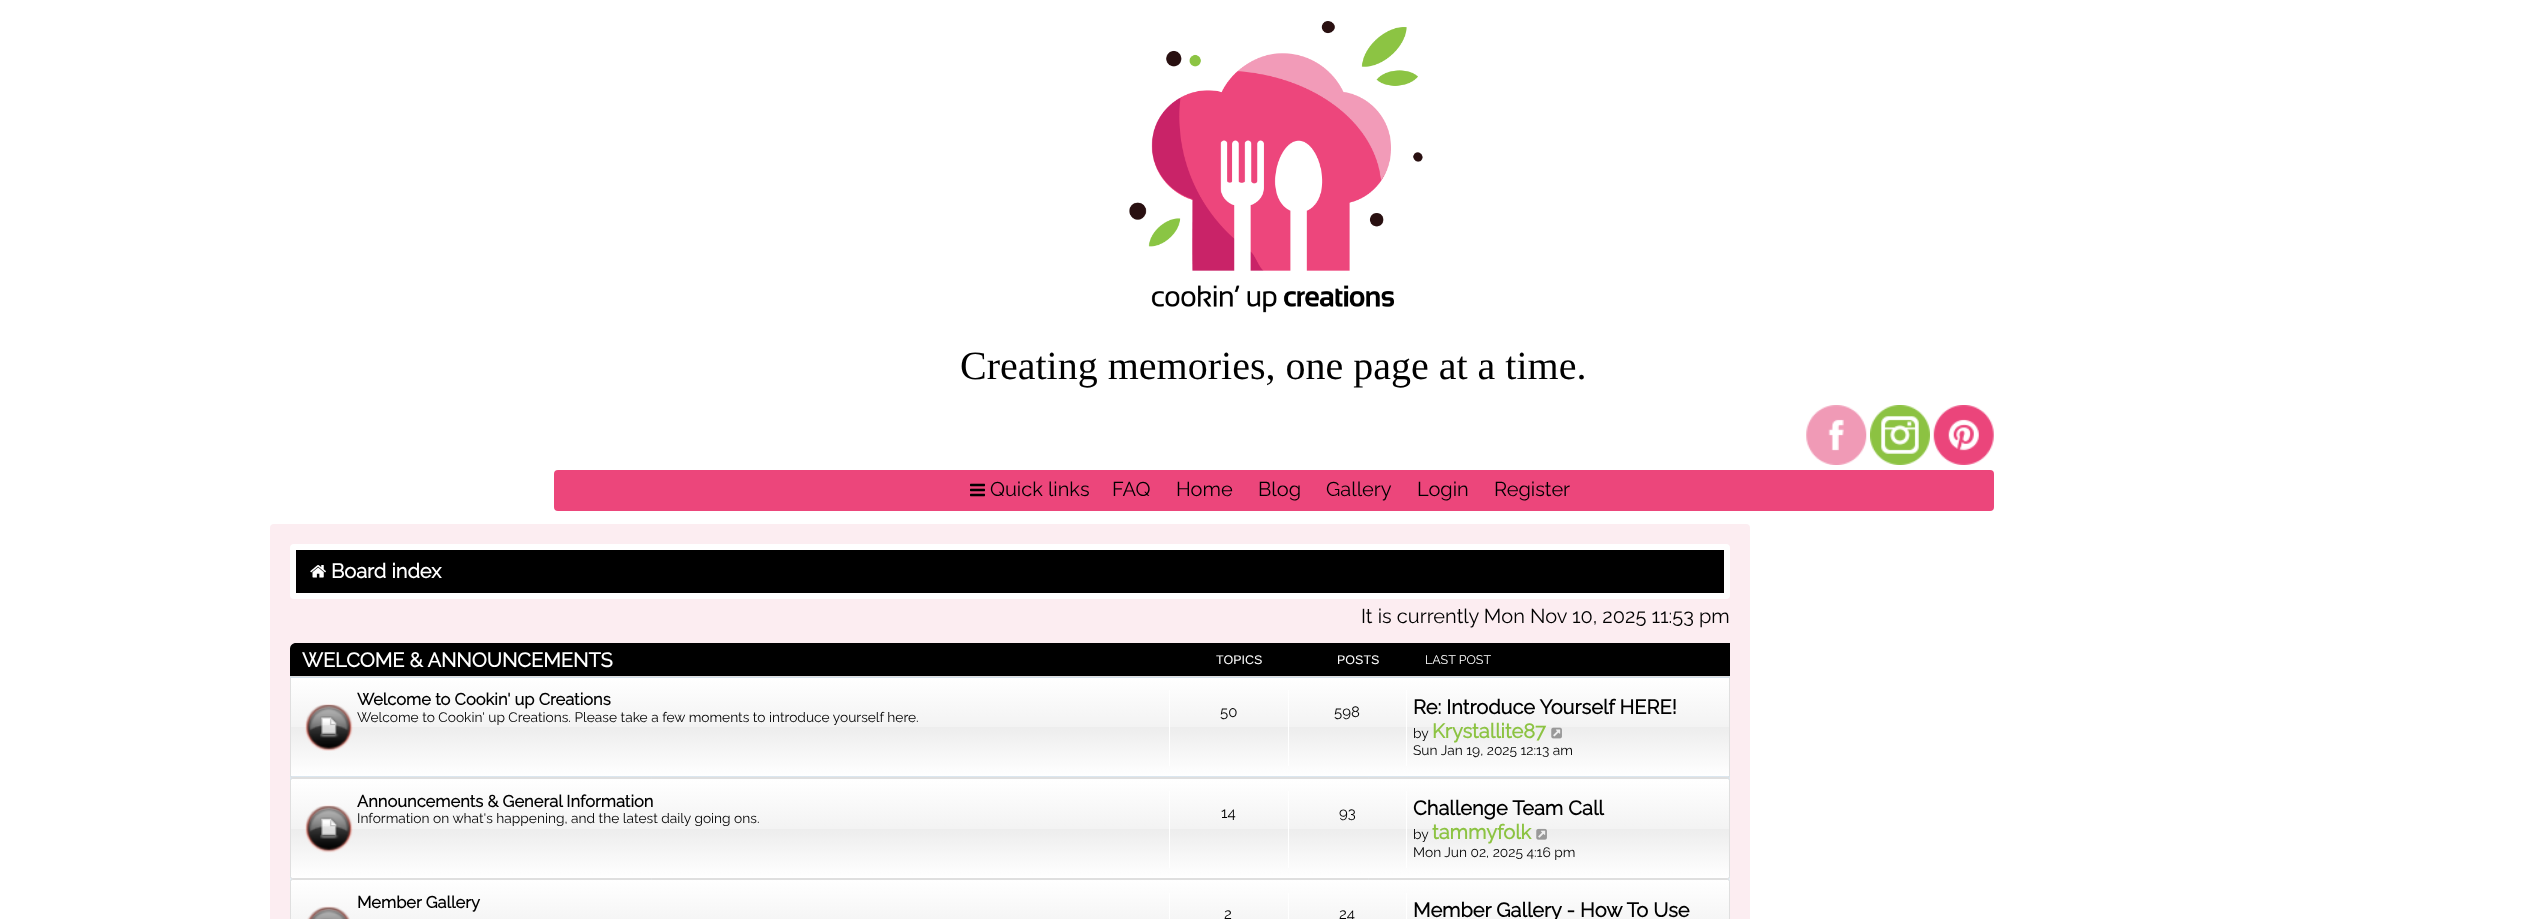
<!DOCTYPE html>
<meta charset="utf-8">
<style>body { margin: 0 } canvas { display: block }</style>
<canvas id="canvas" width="2546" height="919"></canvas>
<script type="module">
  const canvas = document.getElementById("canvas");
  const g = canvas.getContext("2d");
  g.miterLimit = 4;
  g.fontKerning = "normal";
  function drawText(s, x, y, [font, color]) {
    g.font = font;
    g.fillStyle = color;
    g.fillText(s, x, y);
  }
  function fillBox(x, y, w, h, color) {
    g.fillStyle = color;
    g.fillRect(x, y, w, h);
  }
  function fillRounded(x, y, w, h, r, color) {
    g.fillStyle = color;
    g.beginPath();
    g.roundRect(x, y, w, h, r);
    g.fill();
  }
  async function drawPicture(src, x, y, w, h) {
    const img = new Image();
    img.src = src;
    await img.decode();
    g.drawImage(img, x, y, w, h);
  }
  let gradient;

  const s1 = ["40px Liberation Serif", "#000000"];
  const s2 = ["100 20px Raleway", "#000000"];
  const s3 = ["bold 20px Raleway", "#FFFFFF"];
  const s4 = ["12.5px Liberation Sans", "#FFFFFF"];
  const s5 = ["100 12.5px Raleway", "#FFFFFF"];
  const s6 = ["bold 16.5px Raleway", "#000000"];
  const s7 = ["100 13.75px Raleway", "#000000"];
  const s8 = ["100 15px Raleway", "#000000"];
  const s9 = ["bold 20px Raleway", "#000000"];
  const s10 = ["bold 20px Raleway", "#8CC342"];

  fillBox(0, 0, 2546, 919, "#FFFFFF");
  await drawPicture("pic1.png", 1129, 21, 294, 292);
  drawText("Creating memories, one page at a time.", 960, 379, s1);
  await drawPicture("pic2.png", 1806, 405, 61, 60);
  await drawPicture("pic3.png", 1870, 405, 60, 60);
  await drawPicture("pic4.png", 1933, 405, 61, 60);
  fillRounded(554, 470, 1440, 41, 4, "#EC467B");
  await drawPicture("pic5.png", 970, 483, 15, 14);
  drawText("Quick links", 990, 496, s2);
  drawText("FAQ", 1112, 496, s2);
  drawText("Home", 1176, 496, s2);
  drawText("Blog", 1258, 496, s2);
  drawText("Gallery", 1326, 496, s2);
  drawText("Login", 1417, 496, s2);
  drawText("Register", 1494, 496, s2);
  fillRounded(270, 524, 1480, 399, 4, "#FCEDF1");
  g.fillStyle = "#000000";
  g.beginPath();
  g.roundRect(293, 547, 1434, 49, 1);
  g.fill();
  g.strokeStyle = "#FFFFFF";
  g.lineWidth = 6;
  g.stroke();
  await drawPicture("pic6.png", 310, 565, 16, 13);
  drawText("Board index", 331, 578, s3);
  drawText("It is currently Mon Nov 10, 2025 11:53 pm", 1361, 623, s2);
  g.beginPath();
  g.moveTo(296, 643);
  g.lineTo(1730, 643);
  g.lineTo(1730, 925);
  g.lineTo(290, 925);
  g.lineTo(290, 649);
  g.bezierCurveTo(290, 645.5, 292.5, 643, 296, 643);
  g.closePath();
  g.fill();
  drawText("WELCOME & ANNOUNCEMENTS", 302, 667, s3);
  drawText("TOPICS", 1216, 664, s4);
  drawText("POSTS", 1337, 664, s4);
  drawText("LAST POST", 1425, 664, s5);
  gradient = g.createLinearGradient(1010, 676, 1010, 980);
  gradient.addColorStop(0, "#D2E0EB");
  gradient.addColorStop(1, "#EEF5F9");
  g.fillStyle = gradient;
  g.fillRect(290, 676, 1440, 206);
  gradient = g.createLinearGradient(1010, 677, 1010, 776);
  gradient.addColorStop(0, "#FFFFFF");
  gradient.addColorStop(0.5, "#F3F3F3");
  gradient.addColorStop(0.51, "#EDEDED");
  gradient.addColorStop(1, "#FFFFFF");
  g.fillStyle = gradient;
  g.fillRect(291, 678, 1438, 98);
  g.beginPath();
  g.roundRect(290.5, 676.5, 1439, 101, 2);
  g.strokeStyle = "#DFDFDF";
  g.lineWidth = 1;
  g.stroke();
  await drawPicture("pic7.png", 305, 704, 48, 47);
  drawText("Welcome to Cookin' up Creations", 357, 705, s6);
  drawText("Welcome to Cookin' up Creations. Please take a few moments to introduce yourself here.", 357, 722, s7);
  fillBox(1169, 690, 1, 76, "#FFFFFF");
  drawText("50", 1220, 717, s8);
  fillBox(1288, 690, 1, 76, "#FFFFFF");
  drawText("598", 1334, 717, s8);
  fillBox(1406, 690, 1, 76, "#FFFFFF");
  drawText("Re: Introduce Yourself HERE!", 1413, 714, s9);
  drawText("by", 1413, 738, s7);
  drawText("Krystallite87", 1432, 738, s10);
  await drawPicture("pic8.png", 1551, 727, 11, 12);
  drawText("Sun Jan 19, 2025 12:13 am", 1413, 755, s7);
  gradient = g.createLinearGradient(1010, 779, 1010, 878);
  gradient.addColorStop(0, "#FFFFFF");
  gradient.addColorStop(0.5, "#F3F3F3");
  gradient.addColorStop(0.51, "#EDEDED");
  gradient.addColorStop(1, "#FFFFFF");
  g.fillStyle = gradient;
  g.fillRect(291, 779, 1438, 99);
  g.beginPath();
  g.roundRect(290.5, 778.5, 1439, 100, 2);
  g.stroke();
  await drawPicture("pic9.png", 305, 805, 48, 48);
  drawText("Announcements & General Information", 357, 807, s6);
  drawText("Information on what's happening, and the latest daily going ons.", 357, 823, s7);
  fillBox(1169, 791, 1, 77, "#FFFFFF");
  drawText("14", 1221, 818, s8);
  fillBox(1288, 791, 1, 77, "#FFFFFF");
  drawText("93", 1339, 818, s8);
  fillBox(1406, 791, 1, 77, "#FFFFFF");
  drawText("Challenge Team Call", 1413, 815, s9);
  drawText("by", 1413, 839, s7);
  drawText("tammyfolk", 1432, 839, s10);
  await drawPicture("pic10.png", 1536, 828, 11, 12);
  drawText("Mon Jun 02, 2025 4:16 pm", 1413, 857, s7);
  gradient = g.createLinearGradient(1010, 880, 1010, 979);
  gradient.addColorStop(0, "#FFFFFF");
  gradient.addColorStop(0.5, "#F3F3F3");
  gradient.addColorStop(0.51, "#EDEDED");
  gradient.addColorStop(1, "#FFFFFF");
  g.fillStyle = gradient;
  g.fillRect(291, 880, 1438, 39);
  g.beginPath();
  g.roundRect(290.5, 879.5, 1439, 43, 2);
  g.stroke();
  await drawPicture("pic11.png", 307, 906, 43, 13);
  drawText("Member Gallery", 357, 908, s6);
  fillBox(1169, 893, 1, 26, "#FFFFFF");
  drawText("2", 1224, 919, s8);
  fillBox(1288, 893, 1, 26, "#FFFFFF");
  drawText("24", 1339, 919, s8);
  fillBox(1406, 893, 1, 26, "#FFFFFF");
  drawText("Member Gallery - How To Use", 1413, 917, s9);
</script>
